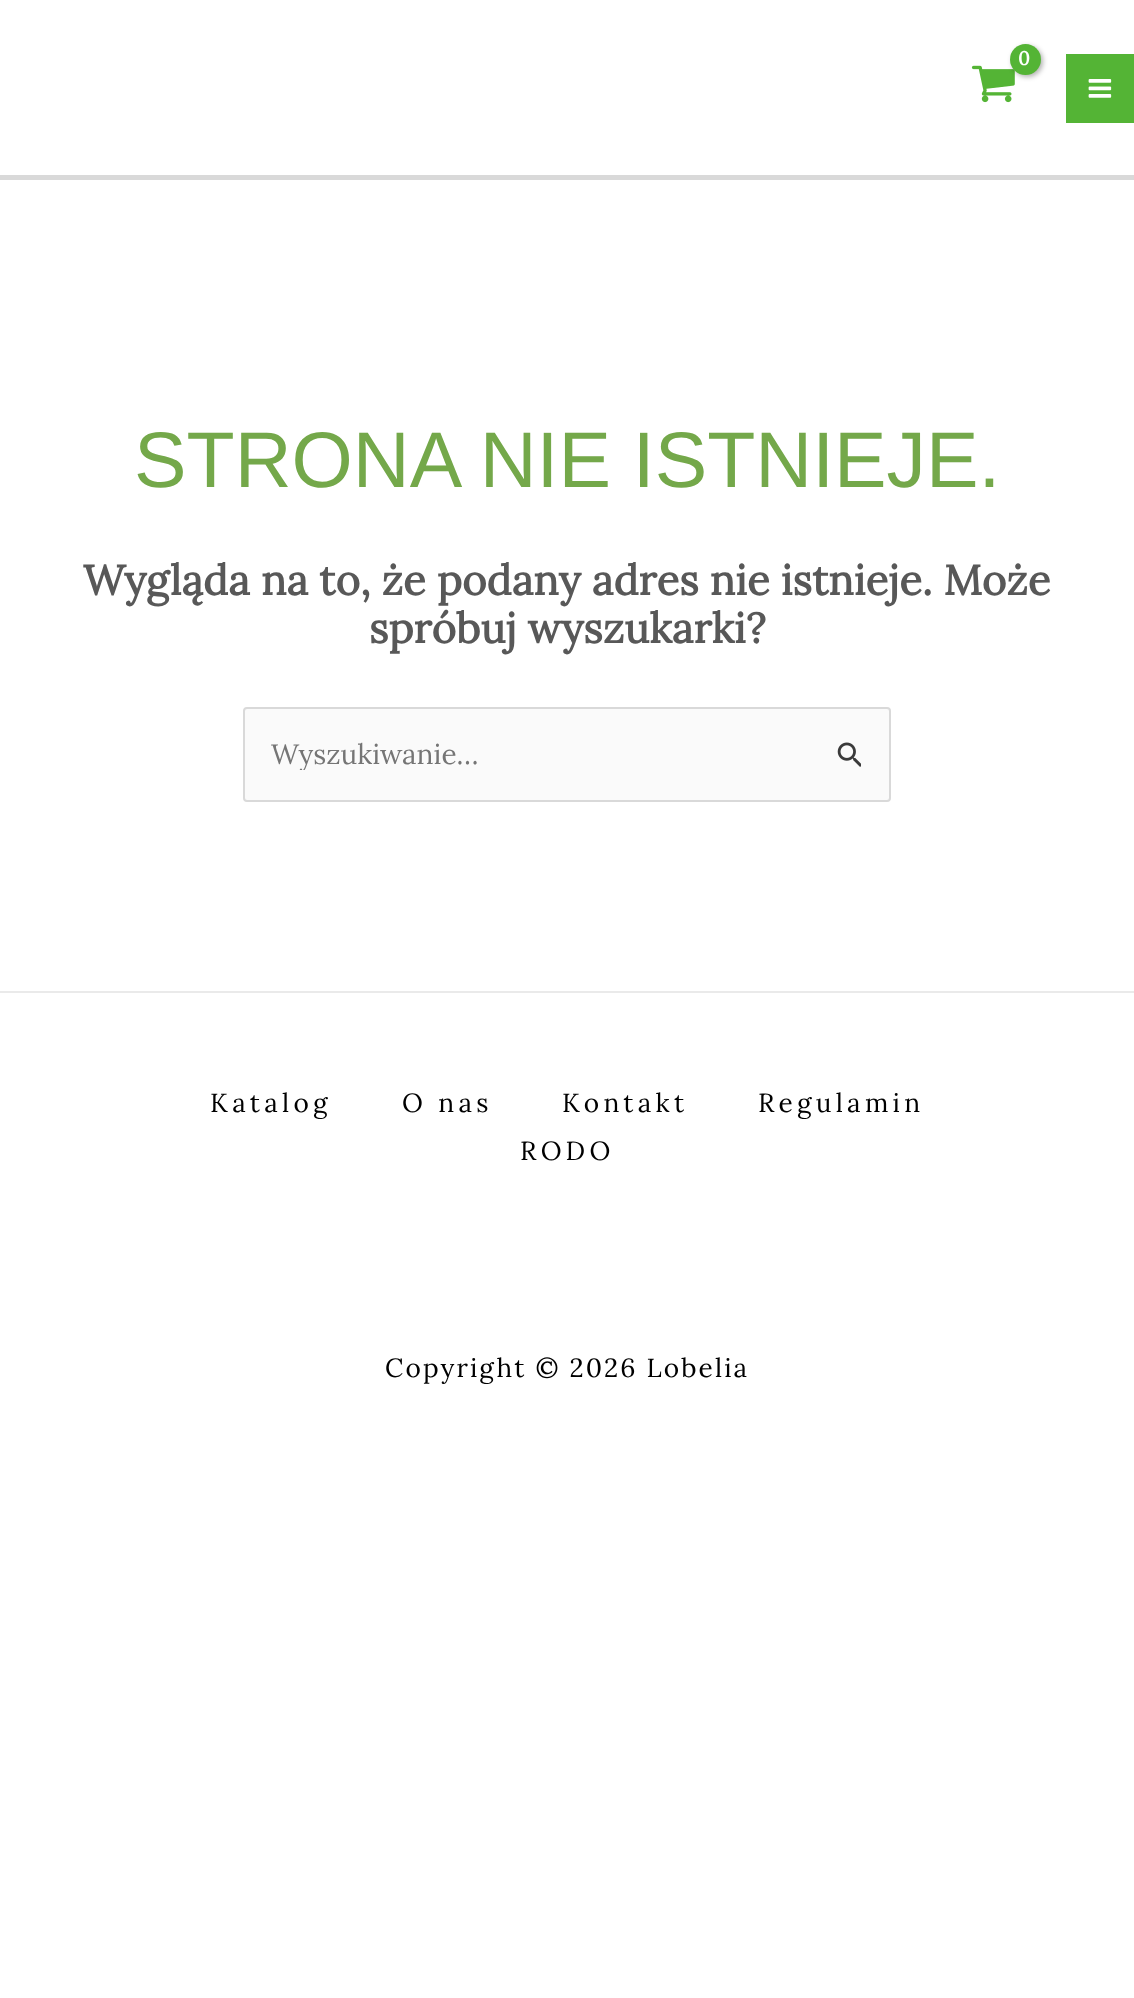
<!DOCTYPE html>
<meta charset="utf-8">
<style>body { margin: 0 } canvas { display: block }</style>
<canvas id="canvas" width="1134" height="1998"></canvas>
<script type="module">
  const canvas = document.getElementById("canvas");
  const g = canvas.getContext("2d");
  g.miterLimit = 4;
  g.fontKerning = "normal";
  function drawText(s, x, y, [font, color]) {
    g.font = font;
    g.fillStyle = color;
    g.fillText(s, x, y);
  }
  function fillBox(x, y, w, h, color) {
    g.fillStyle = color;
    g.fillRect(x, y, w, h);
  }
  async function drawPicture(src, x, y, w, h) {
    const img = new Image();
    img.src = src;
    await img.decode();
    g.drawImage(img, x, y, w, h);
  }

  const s1 = ["bold 19px Lora", "#FFFFFF"];
  const s2 = ["78.75px Liberation Sans", "#74A84A"];
  const s3 = ["bold 42px Lora", "#585858"];
  const s4 = ["28px Lora", "#757575"];
  const s5 = ["26.25px Lora", "#000000"];

  fillBox(0, 0, 1134, 1998, "#FFFFFF");
  fillBox(0, 175, 1134, 5, "#D9D9D9");
  await drawPicture("pic1.png", 971, 65, 44, 38);
  g.fillStyle = "rgba(0, 0, 0, 0.3)";
  g.filter = "blur(2.5px)";
  g.beginPath();
  g.roundRect(1012, 46, 31, 31, 15.5);
  g.fill();
  g.filter = "none";
  g.fillStyle = "#54B435";
  g.beginPath();
  g.arc(1025.5, 59.5, 15.5, 0, Math.PI * 2);
  g.fill();
  g.letterSpacing = "-1px";
  drawText("0", 1018, 65, s1);
  fillBox(1066, 54, 68, 69, "#54B435");
  await drawPicture("pic2.png", 1088, 79, 24, 19);
  g.letterSpacing = "0px";
  drawText("STRONA NIE ISTNIEJE.", 134, 487, s2);
  drawText("Wygląda na to, że podany adres nie istnieje. Może", 83, 595, s3);
  drawText("spróbuj wyszukarki?", 369, 643, s3);
  g.fillStyle = "#FAFAFA";
  g.beginPath();
  g.roundRect(244, 708, 646, 93, 3);
  g.fill();
  g.strokeStyle = "#D9D9D9";
  g.lineWidth = 2;
  g.stroke();
  g.save();
  g.beginPath();
  g.rect(271, 735, 532, 35);
  g.clip();
  drawText("Wyszukiwanie…", 271, 764, s4);
  g.restore();
  await drawPicture("pic3.png", 837, 742, 24, 25);
  fillBox(0, 991, 1134, 2, "#EAEAEA");
  g.letterSpacing = "4.25px";
  drawText("Katalog", 210, 1112, s5);
  drawText("O nas", 402, 1112, s5);
  drawText("Kontakt", 562, 1112, s5);
  drawText("Regulamin", 758, 1112, s5);
  drawText("RODO", 520, 1160, s5);
  g.letterSpacing = "2.1px";
  drawText("Copyright © 2026 Lobelia", 385, 1377, s5);
</script>
